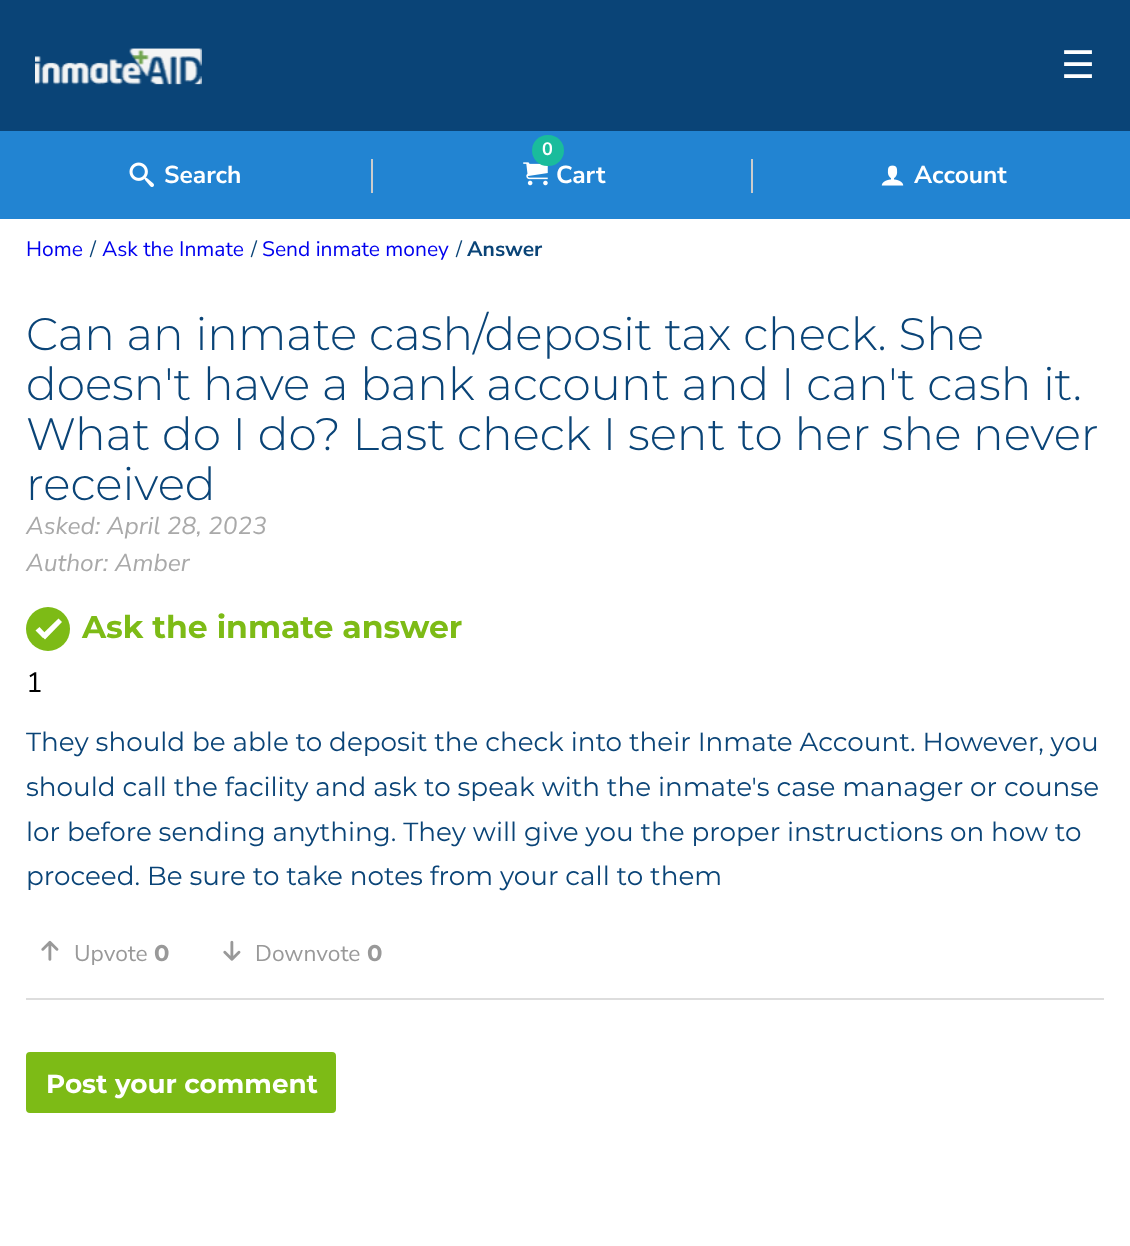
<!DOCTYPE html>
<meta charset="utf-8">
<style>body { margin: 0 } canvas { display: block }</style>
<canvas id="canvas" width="1130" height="1246"></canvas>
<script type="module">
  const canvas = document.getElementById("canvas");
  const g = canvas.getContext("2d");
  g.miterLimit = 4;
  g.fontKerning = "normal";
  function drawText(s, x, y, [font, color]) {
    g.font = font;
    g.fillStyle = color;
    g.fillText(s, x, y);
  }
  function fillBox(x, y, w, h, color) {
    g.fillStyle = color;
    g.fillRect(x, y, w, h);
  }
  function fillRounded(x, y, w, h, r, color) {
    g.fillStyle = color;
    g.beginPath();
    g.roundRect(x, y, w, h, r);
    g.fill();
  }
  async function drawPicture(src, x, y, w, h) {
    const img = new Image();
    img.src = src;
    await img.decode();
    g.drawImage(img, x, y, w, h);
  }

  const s1 = ["38px DejaVu Sans", "#FFFFFF"];
  const s2 = ["bold 24.5px Nunito Sans", "#FFFFFF"];
  const s3 = ["bold 18px Nunito Sans", "#FFFFFF"];
  const s4 = ["21px Nunito Sans", "#0000EE"];
  const s5 = ["21px Nunito Sans", "#0A4477"];
  const s6 = ["bold 21px Nunito Sans", "#0A4477"];
  const s7 = ["300 45.5px Montserrat", "#0A4477"];
  const s8 = ["italic 24.5px Nunito Sans", "#A9A9A9"];
  const s9 = ["bold 31.5px Montserrat", "#7DBB16"];
  const s10 = ["28px Nunito Sans", "#000000"];
  const s11 = ["26.25px Montserrat", "#0A4477"];
  const s12 = ["22.75px Nunito Sans", "#999999"];
  const s13 = ["bold 22.75px Montserrat", "#999999"];
  const s14 = ["bold 26.25px Montserrat", "#FFFFFF"];

  fillBox(0, 0, 1130, 1246, "#FFFFFF");
  fillBox(0, 0, 1130, 131, "#0A4477");
  await drawPicture("pic1.png", 35, 48, 167, 37);
  drawText("☰", 1061, 78, s1);
  fillBox(0, 131, 1130, 88, "#2284D2");
  fillBox(371, 159, 2, 34, "#CCCCCC");
  await drawPicture("pic2.png", 129, 162, 25, 25);
  drawText("Search", 164, 183, s2);
  fillBox(751, 159, 2, 34, "#CCCCCC");
  await drawPicture("pic3.png", 523, 162, 25, 24);
  drawText("Cart", 556, 183, s2);
  fillRounded(532, 135, 32, 31, 15.5, "#1ABC9C");
  drawText("0", 542, 155, s3);
  await drawPicture("pic4.png", 881, 165, 23, 21);
  drawText("Account", 914, 183, s2);
  drawText("Home", 26, 256, s4);
  drawText("/", 90, 256, s5);
  drawText("Ask the Inmate", 102, 256, s4);
  drawText("/", 251, 256, s5);
  drawText("Send inmate money", 262, 256, s4);
  drawText("/", 456, 256, s5);
  drawText("Answer", 467, 256, s6);
  drawText("Can an inmate cash/deposit tax check. She", 26, 350, s7);
  drawText("doesn't have a bank account and I can't cash it.", 26, 400, s7);
  drawText("What do I do? Last check I sent to her she never", 26, 450, s7);
  drawText("received", 26, 500, s7);
  drawText("Asked: April 28, 2023", 26, 534, s8);
  drawText("Author: Amber", 26, 571, s8);
  g.fillStyle = "#7DBB16";
  g.beginPath();
  g.arc(48, 629, 22, 0, Math.PI * 2);
  g.fill();
  g.fillStyle = "#FFFFFF";
  g.beginPath();
  g.moveTo(58.5, 618.5);
  g.lineTo(62, 622);
  g.lineTo(45, 639.5);
  g.lineTo(41, 635.5);
  g.closePath();
  g.fill();
  g.beginPath();
  g.moveTo(35.5, 630.5);
  g.lineTo(39.5, 627);
  g.lineTo(46.5, 634.5);
  g.lineTo(43, 638);
  g.closePath();
  g.fill();
  drawText("Ask the inmate answer", 82, 638, s9);
  drawText("1", 26, 692, s10);
  drawText("They should be able to deposit the check into their Inmate Account. However, you", 26, 751, s11);
  drawText("should call the facility and ask to speak with the inmate's case manager or counse", 26, 796, s11);
  drawText("lor before sending anything. They will give you the proper instructions on how to", 26, 841, s11);
  drawText("proceed. Be sure to take notes from your call to them", 26, 885, s11);
  await drawPicture("pic5.png", 41, 940, 18, 21);
  drawText("Upvote", 74, 961, s12);
  drawText("0", 154, 961, s13);
  await drawPicture("pic6.png", 223, 940, 18, 21);
  drawText("Downvote", 255, 961, s12);
  drawText("0", 367, 961, s13);
  fillBox(26, 998, 1078, 2, "#DDDDDD");
  g.fillStyle = "#7DBB16";
  g.beginPath();
  g.roundRect(27, 1053, 308, 59, 3);
  g.fill();
  g.strokeStyle = "#7DBB16";
  g.lineWidth = 2;
  g.stroke();
  drawText("Post your comment", 46, 1093, s14);
</script>
